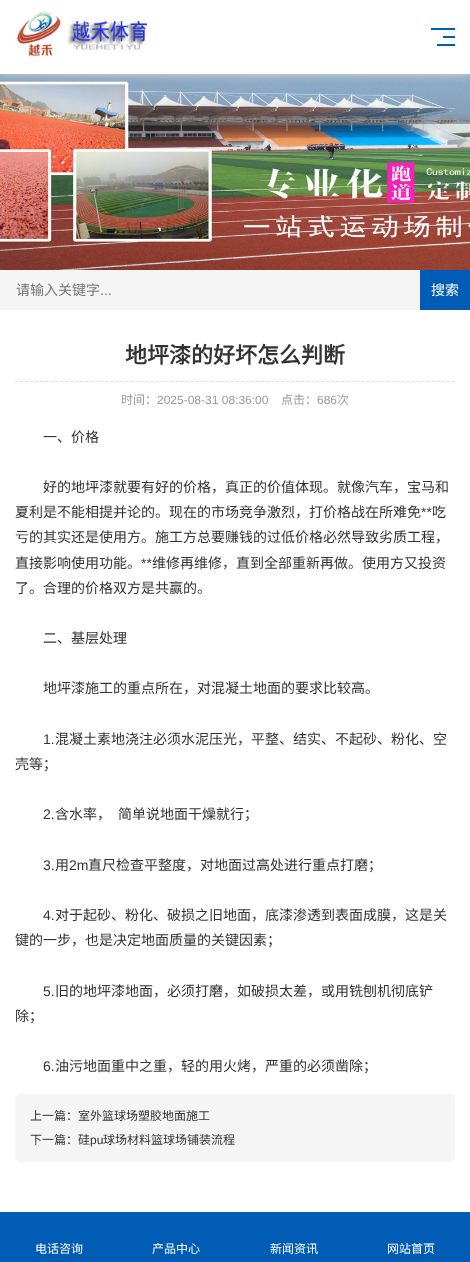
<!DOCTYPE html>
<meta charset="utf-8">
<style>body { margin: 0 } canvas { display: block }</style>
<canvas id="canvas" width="470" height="1262"></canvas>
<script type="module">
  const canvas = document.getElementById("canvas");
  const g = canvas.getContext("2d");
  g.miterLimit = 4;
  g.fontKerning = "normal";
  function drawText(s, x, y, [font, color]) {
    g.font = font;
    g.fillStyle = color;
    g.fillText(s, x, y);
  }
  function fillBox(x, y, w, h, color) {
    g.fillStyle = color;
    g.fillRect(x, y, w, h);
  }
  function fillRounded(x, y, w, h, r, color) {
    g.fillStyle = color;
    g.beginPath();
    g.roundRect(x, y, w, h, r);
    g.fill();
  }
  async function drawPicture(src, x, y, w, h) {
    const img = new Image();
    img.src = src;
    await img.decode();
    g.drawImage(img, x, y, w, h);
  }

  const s1 = ["14px Noto Sans CJK SC", "#757575"];
  const s2 = ["14px Liberation Sans", "#757575"];
  const s3 = ["14px Noto Sans CJK SC", "#FFFFFF"];
  const s4 = ["bold 22px Noto Sans CJK SC", "#333333"];
  const s5 = ["12px Noto Sans CJK SC", "#999999"];
  const s6 = ["12px Liberation Sans", "#999999"];
  const s7 = ["14px Noto Sans CJK SC", "#333333"];
  const s8 = ["14px Liberation Sans", "#333333"];
  const s9 = ["12px Noto Sans CJK SC", "#333333"];
  const s10 = ["12px Liberation Sans", "#333333"];
  const s11 = ["12px Noto Sans CJK SC", "#FFFFFF"];

  fillBox(0, 0, 470, 1262, "#FFFFFF");
  await drawPicture("pic2.png", 0, 74, 470, 196);
  g.fillStyle = "#DDDDDD";
  g.filter = "blur(5px)";
  g.beginPath();
  g.rect(0, 0, 470, 74);
  g.fill();
  g.filter = "none";
  fillBox(0, 0, 470, 74, "#FFFFFF");
  await drawPicture("pic1.png", 15, 11, 135, 47);
  fillBox(431, 28, 24, 2, "#015CB5");
  fillBox(443, 36, 12, 2, "#015CB5");
  fillBox(437, 44, 18, 2, "#015CB5");
  fillBox(0, 270, 420, 40, "#F5F5F5");
  drawText("请输入关键字", 16, 295, s1);
  drawText("...", 100, 295, s2);
  fillBox(420, 270, 50, 40, "#015CB5");
  drawText("搜索", 431, 295, s3);
  drawText("地坪漆的好坏怎么判断", 125, 363, s4);
  g.beginPath();
  g.moveTo(15, 381.5);
  g.lineTo(455, 381.5);
  g.strokeStyle = "#DDDDDD";
  g.setLineDash([3, 2.02]);
  g.stroke();
  drawText("时间：", 121, 404, s5);
  drawText("2025-08-31 08:36:00", 157, 404, s6);
  drawText("点击：", 281, 404, s5);
  drawText("686", 317, 404, s6);
  drawText("次", 337, 404, s5);
  drawText("一、价格", 43, 442, s7);
  drawText("好的地坪漆就要有好的价格，真正的价值体现。就像汽车，宝马和", 43, 492, s7);
  drawText("夏利是不能相提并论的。现在的市场竞争激烈，打价格战在所难免", 15, 517, s7);
  drawText("**", 421, 517, s8);
  drawText("吃", 432, 517, s7);
  drawText("亏的其实还是使用方。施工方总要赚钱的过低价格必然导致劣质工程，", 15, 542, s7);
  drawText("直接影响使用功能。", 15, 568, s7);
  drawText("**", 141, 568, s8);
  drawText("维修再维修，直到全部重新再做。使用方又投资", 152, 568, s7);
  drawText("了。合理的价格双方是共赢的。", 15, 593, s7);
  drawText("二、基层处理", 43, 643, s7);
  drawText("地坪漆施工的重点所在，对混凝土地面的要求比较高。", 43, 693, s7);
  drawText("1.", 43, 744, s8);
  drawText("混凝土素地浇注必须水泥压光，平整、结实、不起砂、粉化、空", 55, 744, s7);
  drawText("壳等；", 15, 769, s7);
  drawText("2.", 43, 819, s8);
  drawText("含水率，", 55, 819, s7);
  drawText("简单说地面干燥就行；", 118, 819, s7);
  drawText("3.", 43, 870, s8);
  drawText("用", 55, 870, s7);
  drawText("2m", 69, 870, s8);
  drawText("直尺检查平整度，对地面过高处进行重点打磨；", 88, 870, s7);
  drawText("4.", 43, 920, s8);
  drawText("对于起砂、粉化、破损之旧地面，底漆渗透到表面成膜，这是关", 55, 920, s7);
  drawText("键的一步，也是决定地面质量的关键因素；", 15, 945, s7);
  drawText("5.", 43, 996, s8);
  drawText("旧的地坪漆地面，必须打磨，如破损太差，或用铣刨机彻底铲", 55, 996, s7);
  drawText("除；", 15, 1021, s7);
  drawText("6.", 43, 1071, s8);
  drawText("油污地面重中之重，轻的用火烤，严重的必须凿除；", 55, 1071, s7);
  fillRounded(15, 1094, 440, 68, 5, "#F5F5F5");
  drawText("上一篇：室外篮球场塑胶地面施工", 30, 1120, s9);
  drawText("下一篇：硅", 30, 1144, s9);
  drawText("pu", 90, 1144, s10);
  drawText("球场材料篮球场铺装流程", 103, 1144, s9);
  fillBox(0, 1212, 470, 50, "#015CB5");
  drawText("电话咨询", 35, 1253, s11);
  drawText("产品中心", 152, 1253, s11);
  drawText("新闻资讯", 270, 1253, s11);
  drawText("网站首页", 387, 1253, s11);
</script>
